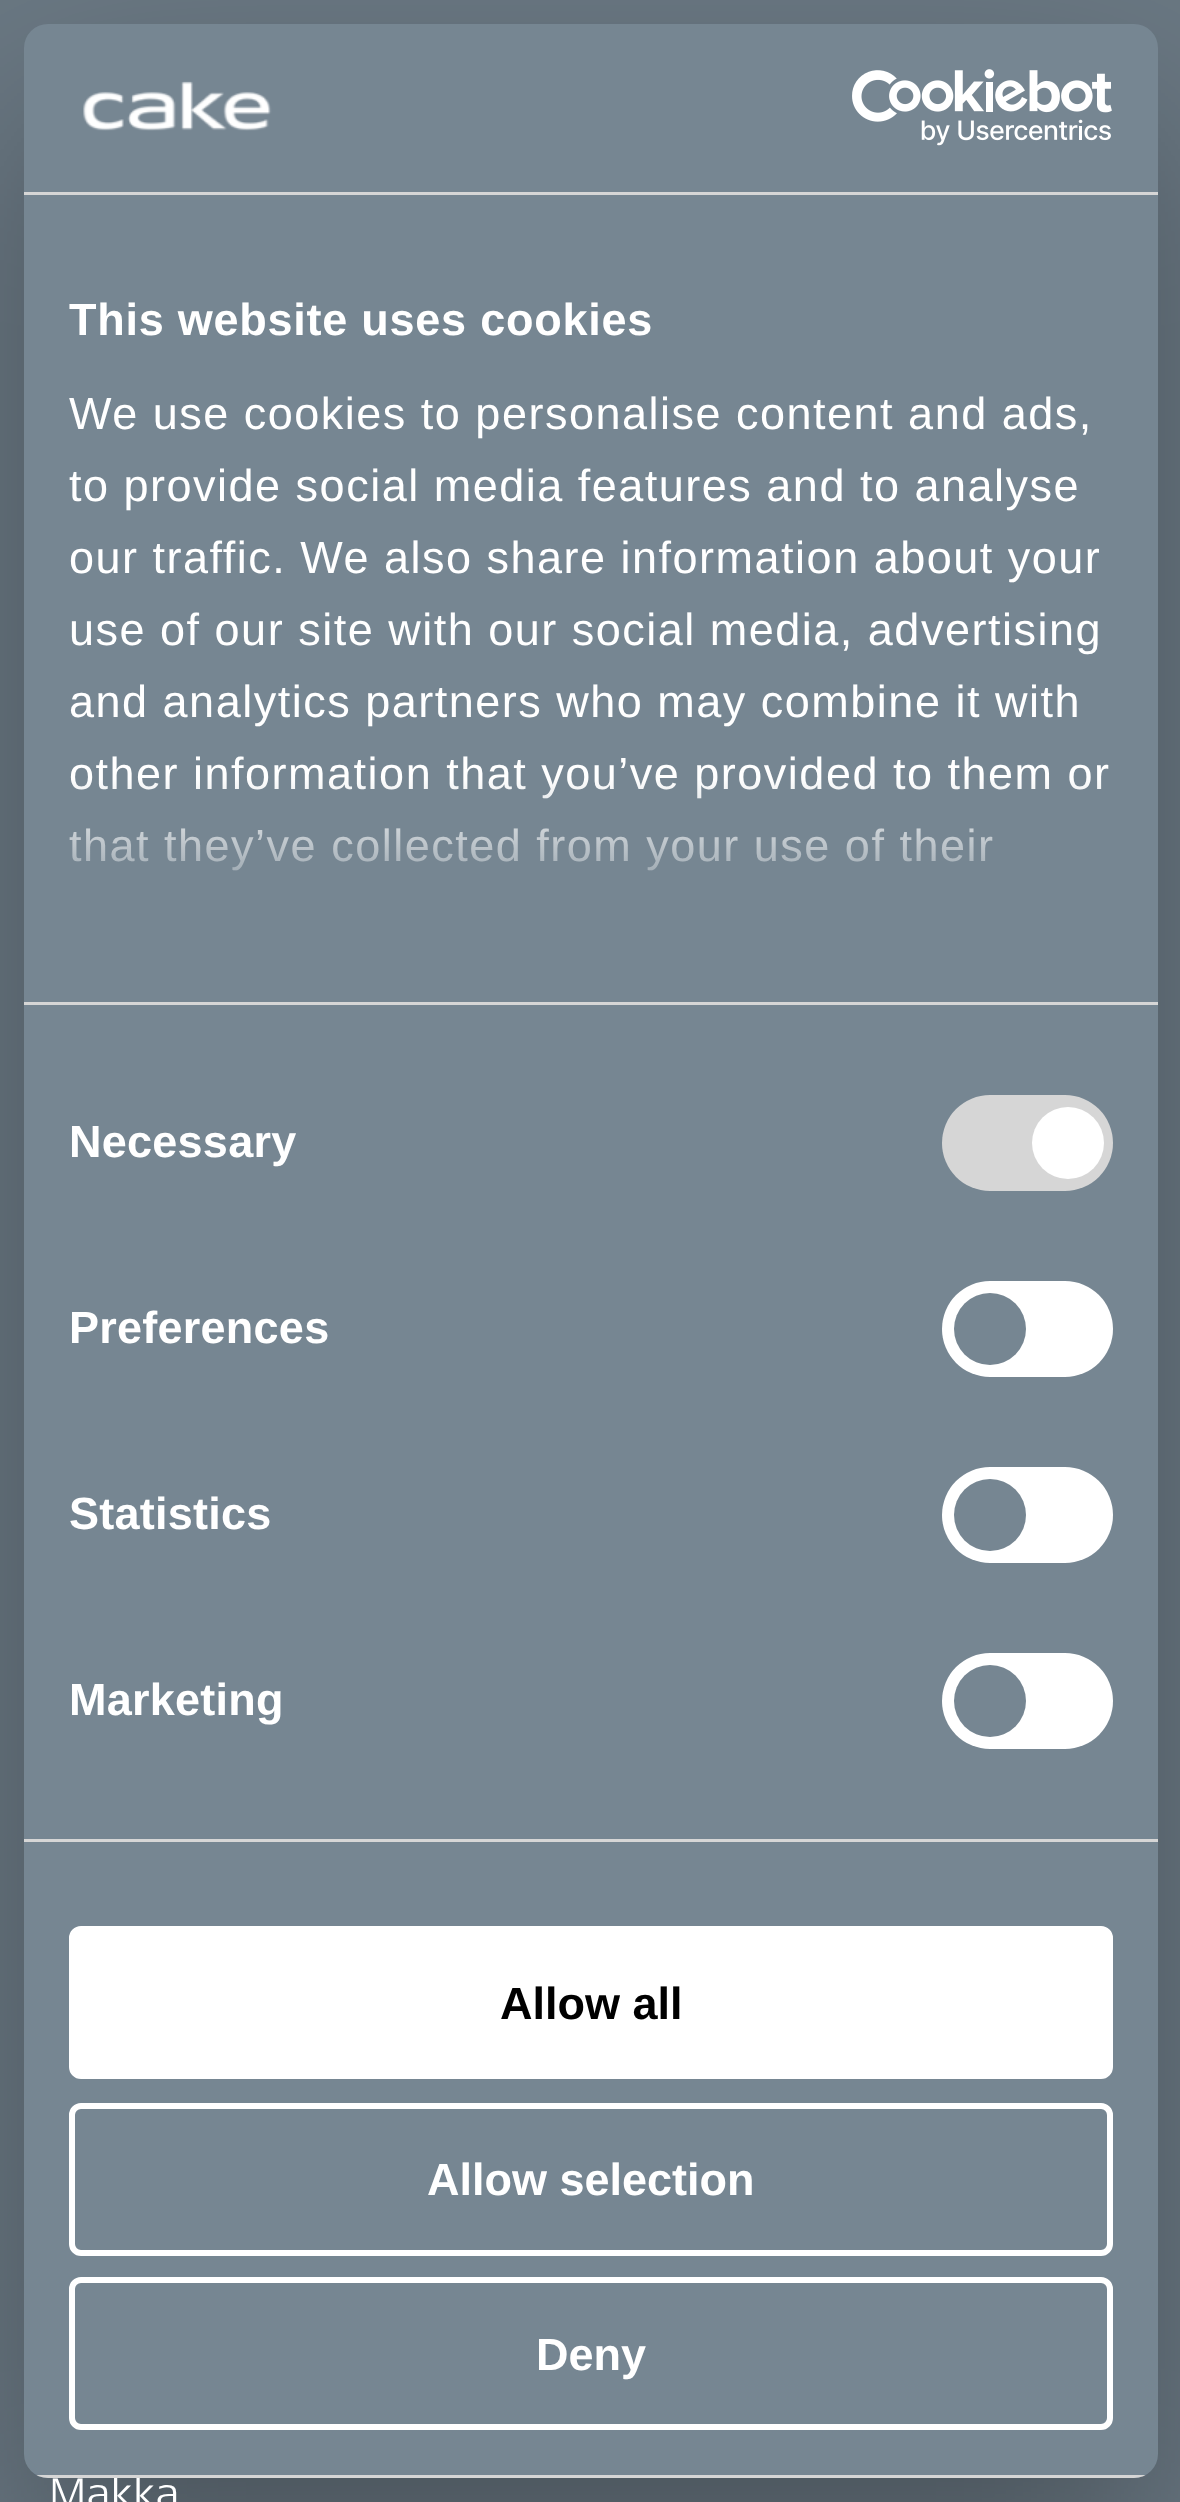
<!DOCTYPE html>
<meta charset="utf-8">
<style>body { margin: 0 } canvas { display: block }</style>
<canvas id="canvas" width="1180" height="2502"></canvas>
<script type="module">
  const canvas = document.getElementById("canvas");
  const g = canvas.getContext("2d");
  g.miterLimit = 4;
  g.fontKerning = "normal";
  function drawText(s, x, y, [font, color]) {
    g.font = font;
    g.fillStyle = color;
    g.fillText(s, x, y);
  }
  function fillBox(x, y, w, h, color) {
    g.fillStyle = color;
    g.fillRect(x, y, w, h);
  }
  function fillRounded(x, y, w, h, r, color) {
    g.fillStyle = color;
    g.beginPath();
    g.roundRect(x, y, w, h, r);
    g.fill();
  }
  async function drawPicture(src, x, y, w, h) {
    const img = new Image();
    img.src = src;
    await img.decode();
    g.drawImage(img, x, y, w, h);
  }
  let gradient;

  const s1 = ["42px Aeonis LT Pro", "#FFFFFF"];
  const s2 = ["bold 45px Liberation Sans", "#FFFFFF"];
  const s3 = ["45px Liberation Sans", "#FFFFFF"];
  const s4 = ["bold 45px Liberation Sans", "#000000"];

  fillBox(0, 0, 1180, 2502, "#6A7883");
  g.fillStyle = "rgba(0, 0, 0, 0.3)";
  g.filter = "blur(102px)";
  g.beginPath();
  g.roundRect(24, 120, 1134, 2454, 24);
  g.fill();
  g.filter = "none";
  g.letterSpacing = "0.5px";
  drawText("Makka", 49, 2507, s1);
  fillRounded(24, 24, 1134, 2454, 24, "#768692");
  fillBox(24, 192, 1134, 3, "#D6D6D6");
  await drawPicture("pic1.png", 83, 81, 189, 50);
  await drawPicture("pic2.png", 852, 69, 260, 77);
  fillBox(24, 1002, 1134, 3, "#D6D6D6");
  g.letterSpacing = "0.75px";
  drawText("This website uses cookies", 69, 335, s2);
  g.letterSpacing = "1.5px";
  drawText("We use cookies to personalise content and ads,", 69, 429, s3);
  drawText("to provide social media features and to analyse", 69, 501, s3);
  drawText("our traffic. We also share information about your", 69, 573, s3);
  drawText("use of our site with our social media, advertising", 69, 645, s3);
  drawText("and analytics partners who may combine it with", 69, 717, s3);
  drawText("other information that you’ve provided to them or", 69, 789, s3);
  drawText("that they’ve collected from your use of their", 69, 861, s3);
  gradient = g.createLinearGradient(572, 1002, 572, 777);
  gradient.addColorStop(0, "#768692");
  gradient.addColorStop(0.5, "rgba(118, 134, 146, 0.8)");
  gradient.addColorStop(1, "rgba(118, 134, 146, 0)");
  g.fillStyle = gradient;
  g.fillRect(69, 780, 1032, 91);
  fillBox(24, 1839, 1134, 3, "#D6D6D6");
  g.letterSpacing = "0.25px";
  drawText("Necessary", 69, 1157, s2);
  fillRounded(942, 1095, 171, 96, 48, "#D6D6D6");
  g.fillStyle = "#FFFFFF";
  g.beginPath();
  g.arc(1068, 1143, 36, 0, Math.PI * 2);
  g.fill();
  drawText("Preferences", 69, 1343, s2);
  fillRounded(942, 1281, 171, 96, 48, "#FFFFFF");
  g.fillStyle = "#768692";
  g.beginPath();
  g.arc(990, 1329, 36, 0, Math.PI * 2);
  g.fill();
  drawText("Statistics", 69, 1529, s2);
  fillRounded(942, 1467, 171, 96, 48, "#FFFFFF");
  g.fillStyle = "#768692";
  g.beginPath();
  g.arc(990, 1515, 36, 0, Math.PI * 2);
  g.fill();
  drawText("Marketing", 69, 1715, s2);
  fillRounded(942, 1653, 171, 96, 48, "#FFFFFF");
  g.fillStyle = "#768692";
  g.beginPath();
  g.arc(990, 1701, 36, 0, Math.PI * 2);
  g.fill();
  g.save();
  g.beginPath();
  g.roundRect(24, 24, 1134, 2454, 24);
  g.clip();
  fillBox(36, 2475, 1110, 3, "#D6D6D6");
  g.restore();
  g.fillStyle = "#FFFFFF";
  g.beginPath();
  g.roundRect(72, 1929, 1038, 147, 9);
  g.fill();
  g.strokeStyle = "#FFFFFF";
  g.lineWidth = 6;
  g.stroke();
  g.letterSpacing = "0px";
  drawText("Allow all", 500, 2019, s4);
  g.beginPath();
  g.roundRect(72, 2106, 1038, 147, 9);
  g.stroke();
  drawText("Allow selection", 427, 2195, s2);
  g.beginPath();
  g.roundRect(72, 2280, 1038, 147, 9);
  g.stroke();
  drawText("Deny", 536, 2370, s2);
</script>
